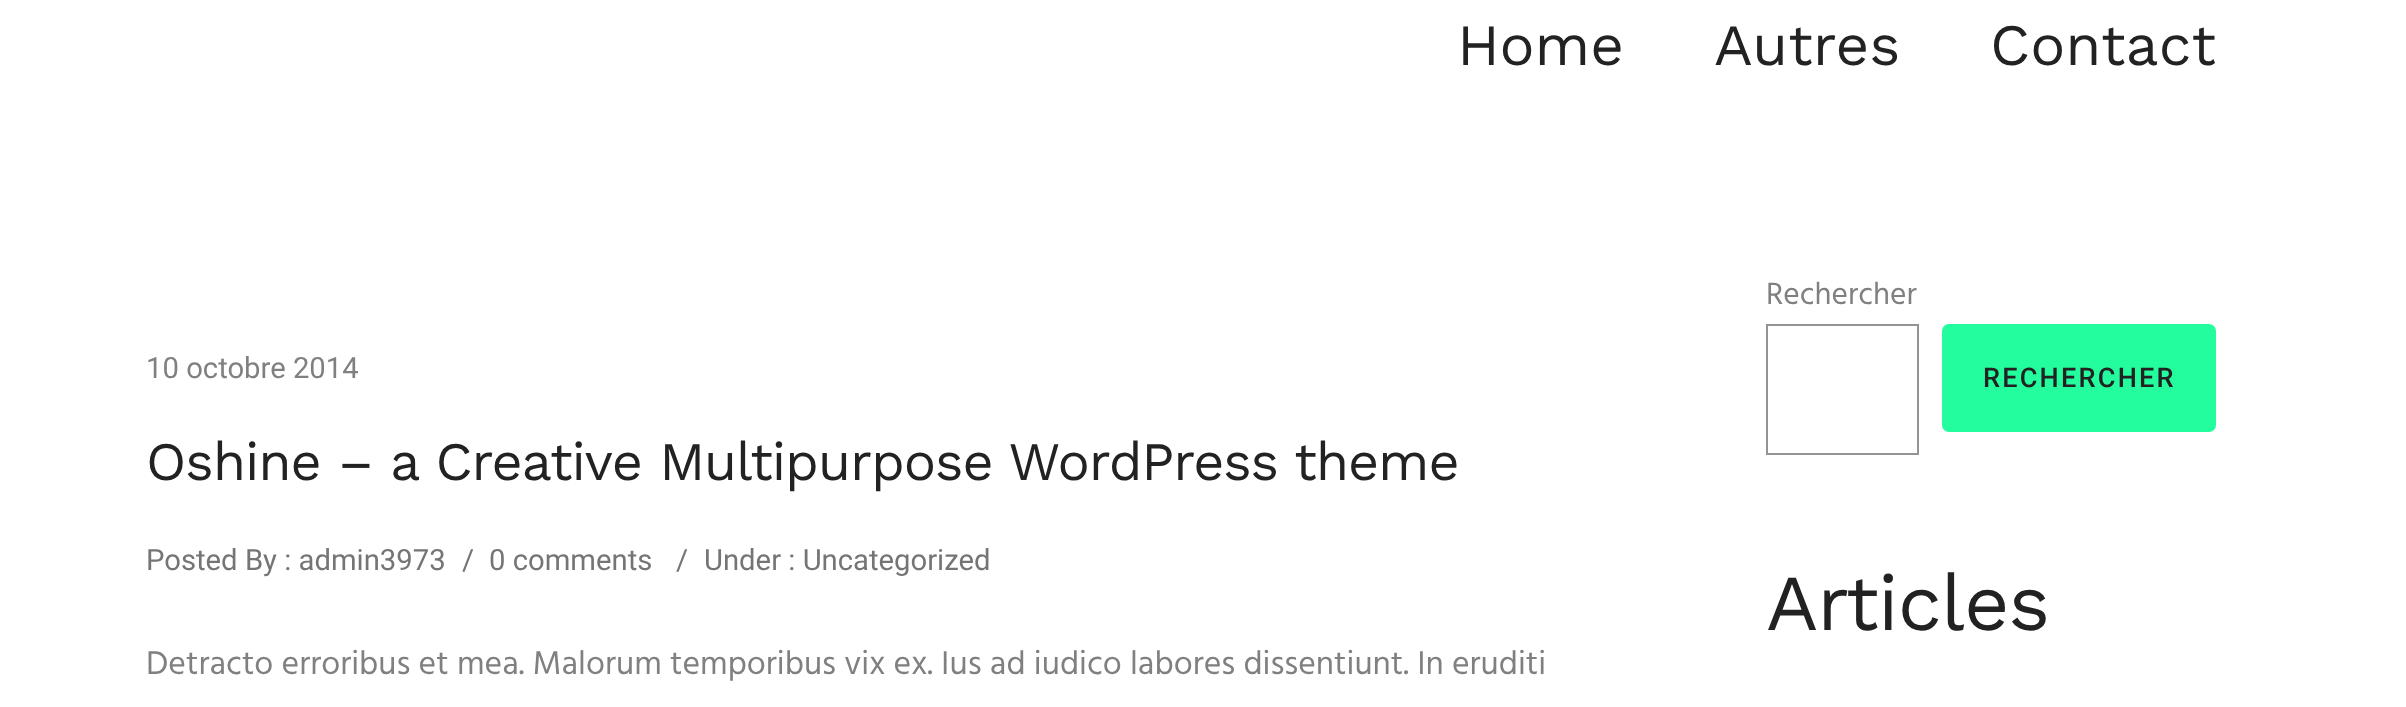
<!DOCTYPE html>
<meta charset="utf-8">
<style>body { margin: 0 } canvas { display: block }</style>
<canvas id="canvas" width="2406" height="707"></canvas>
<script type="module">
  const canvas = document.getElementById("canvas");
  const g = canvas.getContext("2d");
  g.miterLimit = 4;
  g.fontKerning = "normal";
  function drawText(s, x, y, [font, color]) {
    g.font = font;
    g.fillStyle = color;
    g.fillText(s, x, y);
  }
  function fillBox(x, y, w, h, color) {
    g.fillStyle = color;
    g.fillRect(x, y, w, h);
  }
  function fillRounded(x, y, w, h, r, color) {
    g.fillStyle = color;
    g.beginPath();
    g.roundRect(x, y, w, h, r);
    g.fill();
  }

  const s1 = ["58.5px Work Sans", "#222222"];
  const s2 = ["29.25px Roboto", "#808080"];
  const s3 = ["54px Work Sans", "#222222"];
  const s4 = ["29.25px Roboto", "#757575"];
  const s5 = ["33.75px Hind", "#808080"];
  const s6 = ["31.5px Hind", "#808080"];
  const s7 = ["500 27px Roboto", "#222222"];
  const s8 = ["79px Work Sans", "#222222"];

  fillBox(0, 0, 2406, 707, "#FFFFFF");
  drawText("Home", 1457, 65, s1);
  drawText("Autres", 1714, 65, s1);
  drawText("Contact", 1990, 65, s1);
  drawText("10 octobre 2014", 146, 378, s2);
  g.letterSpacing = "-1.1px";
  drawText("Oshine – a Creative Multipurpose WordPress theme", 146, 480, s3);
  g.letterSpacing = "0px";
  drawText("Posted By : admin3973", 146, 570, s4);
  drawText("/", 462, 570, s4);
  drawText("0 comments", 489, 570, s4);
  drawText("/", 676, 570, s4);
  drawText("Under : Uncategorized", 704, 570, s4);
  drawText("Detracto erroribus et mea. Malorum temporibus vix ex. Ius ad iudico labores dissentiunt. In eruditi", 146, 674, s5);
  drawText("Rechercher", 1766, 304, s6);
  g.strokeStyle = "#949494";
  g.lineWidth = 2;
  g.strokeRect(1767, 325, 151, 129);
  fillRounded(1942, 324, 274, 108, 7, "#23FD9E");
  g.letterSpacing = "2.25px";
  drawText("RECHERCHER", 1983, 387, s7);
  g.letterSpacing = "-1.1px";
  drawText("Articles", 1766, 630, s8);
</script>
